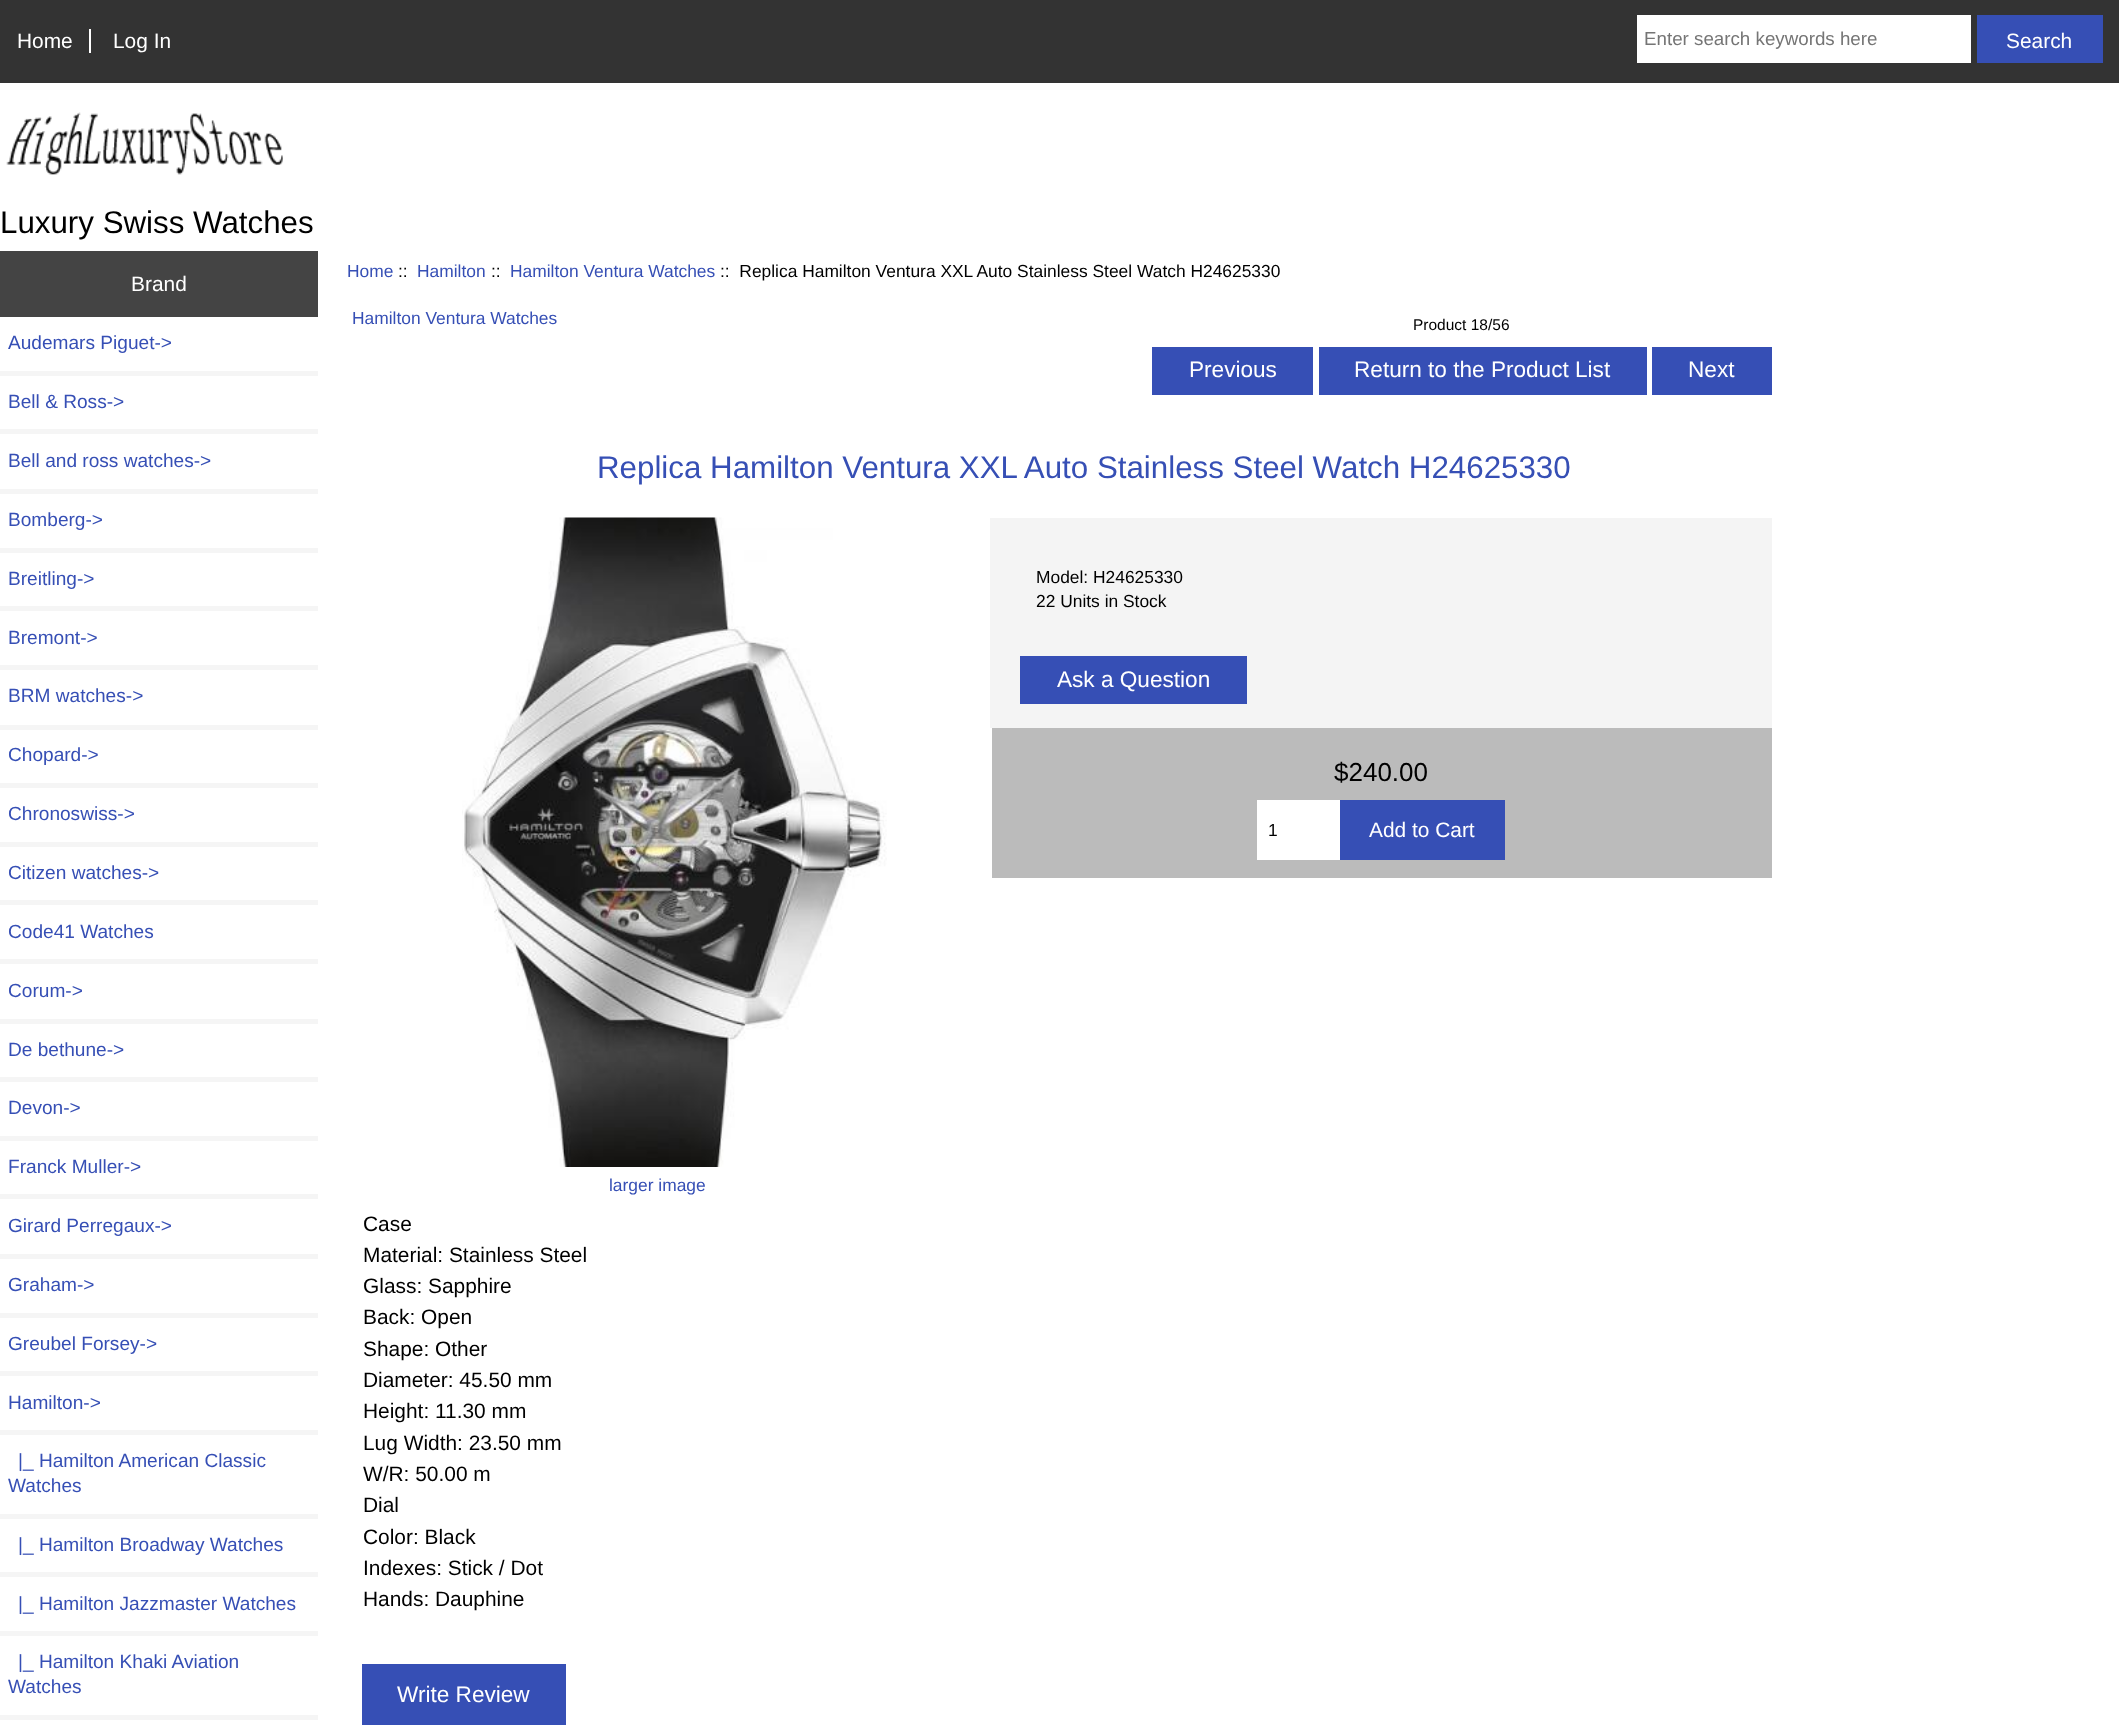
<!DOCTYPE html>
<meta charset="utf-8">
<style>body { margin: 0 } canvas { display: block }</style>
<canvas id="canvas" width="2119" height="1729"></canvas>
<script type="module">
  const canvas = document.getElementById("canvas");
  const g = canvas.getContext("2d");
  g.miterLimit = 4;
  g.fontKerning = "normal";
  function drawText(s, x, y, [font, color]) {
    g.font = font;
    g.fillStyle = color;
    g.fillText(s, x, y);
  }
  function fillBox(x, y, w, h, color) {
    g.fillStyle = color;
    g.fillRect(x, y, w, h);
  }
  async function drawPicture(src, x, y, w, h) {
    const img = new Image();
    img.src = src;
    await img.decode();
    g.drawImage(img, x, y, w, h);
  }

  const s1 = ["20.9px Liberation Sans", "#FFFFFF"];
  const s2 = ["18.75px Liberation Sans", "#757575"];
  const s3 = ["31.3px Liberation Sans", "#000000"];
  const s4 = ["19.1px Liberation Sans", "#364FB5"];
  const s5 = ["17.4px Liberation Sans", "#364FB5"];
  const s6 = ["17.4px Liberation Sans", "#000000"];
  const s7 = ["15.5px Liberation Sans", "#000000"];
  const s8 = ["22.6px Liberation Sans", "#FFFFFF"];
  const s9 = ["31.3px Liberation Sans", "#364FB5"];
  const s10 = ["26px Liberation Sans", "#000000"];
  const s11 = ["20.9px Liberation Sans", "#000000"];

  fillBox(0, 0, 2119, 1729, "#FFFFFF");
  fillBox(0, 0, 2119, 83, "#333333");
  drawText("Home", 17, 48, s1);
  fillBox(89, 29, 2, 24, "#FFFFFF");
  drawText("Log In", 113, 48, s1);
  fillBox(1637, 15, 334, 48, "#FFFFFF");
  drawText("Enter search keywords here", 1644, 45, s2);
  fillBox(1977, 15, 126, 48, "#364FB5");
  drawText("Search", 2006, 48, s1);
  await drawPicture("pic1.png", 6, 112, 277, 63);
  drawText("Luxury Swiss Watches", 0, 233, s3);
  fillBox(0, 251, 318, 66, "#444444");
  drawText("Brand", 131, 291, s1);
  fillBox(0, 371, 318, 5, "#F5F5F5");
  drawText("Audemars Piguet->", 8, 349, s4);
  fillBox(0, 429, 318, 5, "#F5F5F5");
  drawText("Bell & Ross->", 8, 408, s4);
  fillBox(0, 489, 318, 5, "#F5F5F5");
  drawText("Bell and ross watches->", 8, 467, s4);
  fillBox(0, 548, 318, 5, "#F5F5F5");
  drawText("Bomberg->", 8, 526, s4);
  fillBox(0, 606, 318, 5, "#F5F5F5");
  drawText("Breitling->", 8, 585, s4);
  fillBox(0, 665, 318, 5, "#F5F5F5");
  drawText("Bremont->", 8, 644, s4);
  fillBox(0, 725, 318, 5, "#F5F5F5");
  drawText("BRM watches->", 8, 702, s4);
  fillBox(0, 783, 318, 5, "#F5F5F5");
  drawText("Chopard->", 8, 761, s4);
  fillBox(0, 842, 318, 5, "#F5F5F5");
  drawText("Chronoswiss->", 8, 820, s4);
  fillBox(0, 900, 318, 5, "#F5F5F5");
  drawText("Citizen watches->", 8, 879, s4);
  fillBox(0, 959, 318, 5, "#F5F5F5");
  drawText("Code41 Watches", 8, 938, s4);
  fillBox(0, 1019, 318, 5, "#F5F5F5");
  drawText("Corum->", 8, 997, s4);
  fillBox(0, 1077, 318, 5, "#F5F5F5");
  drawText("De bethune->", 8, 1056, s4);
  fillBox(0, 1136, 318, 5, "#F5F5F5");
  drawText("Devon->", 8, 1114, s4);
  fillBox(0, 1194, 318, 5, "#F5F5F5");
  drawText("Franck Muller->", 8, 1173, s4);
  fillBox(0, 1254, 318, 5, "#F5F5F5");
  drawText("Girard Perregaux->", 8, 1232, s4);
  fillBox(0, 1313, 318, 5, "#F5F5F5");
  drawText("Graham->", 8, 1291, s4);
  fillBox(0, 1371, 318, 5, "#F5F5F5");
  drawText("Greubel Forsey->", 8, 1350, s4);
  fillBox(0, 1430, 318, 5, "#F5F5F5");
  drawText("Hamilton->", 8, 1409, s4);
  fillBox(0, 1514, 318, 5, "#F5F5F5");
  drawText("|_ Hamilton American Classic", 18, 1467, s4);
  drawText("Watches", 8, 1492, s4);
  fillBox(0, 1572, 318, 5, "#F5F5F5");
  drawText("|_ Hamilton Broadway Watches", 18, 1551, s4);
  fillBox(0, 1631, 318, 5, "#F5F5F5");
  drawText("|_ Hamilton Jazzmaster Watches", 18, 1610, s4);
  fillBox(0, 1715, 318, 5, "#F5F5F5");
  drawText("|_ Hamilton Khaki Aviation", 18, 1668, s4);
  drawText("Watches", 8, 1693, s4);
  drawText("Home", 347, 277, s5);
  drawText("::", 398, 277, s6);
  drawText("Hamilton", 417, 277, s5);
  drawText("::", 491, 277, s6);
  drawText("Hamilton Ventura Watches", 510, 277, s5);
  drawText("::  Replica Hamilton Ventura XXL Auto Stainless Steel Watch H24625330", 720, 277, s6);
  drawText("Hamilton Ventura Watches", 352, 324, s5);
  drawText("Product 18/56", 1413, 330, s7);
  fillBox(1152, 347, 161, 48, "#364FB5");
  drawText("Previous", 1189, 377, s8);
  fillBox(1319, 347, 328, 48, "#364FB5");
  drawText("Return to the Product List", 1354, 377, s8);
  fillBox(1652, 347, 120, 48, "#364FB5");
  drawText("Next", 1688, 377, s8);
  drawText("Replica Hamilton Ventura XXL Auto Stainless Steel Watch H24625330", 597, 478, s9);
  fillBox(990, 518, 782, 210, "#F4F4F4");
  drawText("Model: H24625330", 1036, 583, s6);
  drawText("22 Units in Stock", 1036, 607, s6);
  fillBox(1020, 656, 227, 48, "#364FB5");
  drawText("Ask a Question", 1057, 687, s8);
  fillBox(992, 728, 780, 150, "#BBBBBB");
  drawText("$240.00", 1334, 781, s10);
  fillBox(1257, 800, 83, 60, "#FFFFFF");
  drawText("1", 1268, 836, s6);
  fillBox(1340, 800, 165, 60, "#364FB5");
  drawText("Add to Cart", 1369, 837, s1);
  await drawPicture("pic2.png", 462, 517, 425, 650);
  drawText("larger image", 609, 1191, s5);
  drawText("Case", 363, 1231, s11);
  drawText("Material: Stainless Steel", 363, 1262, s11);
  drawText("Glass: Sapphire", 363, 1293, s11);
  drawText("Back: Open", 363, 1324, s11);
  drawText("Shape: Other", 363, 1356, s11);
  drawText("Diameter: 45.50 mm", 363, 1387, s11);
  drawText("Height: 11.30 mm", 363, 1418, s11);
  drawText("Lug Width: 23.50 mm", 363, 1450, s11);
  drawText("W/R: 50.00 m", 363, 1481, s11);
  drawText("Dial", 363, 1512, s11);
  drawText("Color: Black", 363, 1544, s11);
  drawText("Indexes: Stick / Dot", 363, 1575, s11);
  drawText("Hands: Dauphine", 363, 1606, s11);
  fillBox(362, 1664, 204, 61, "#364FB5");
  drawText("Write Review", 397, 1702, s8);
</script>
